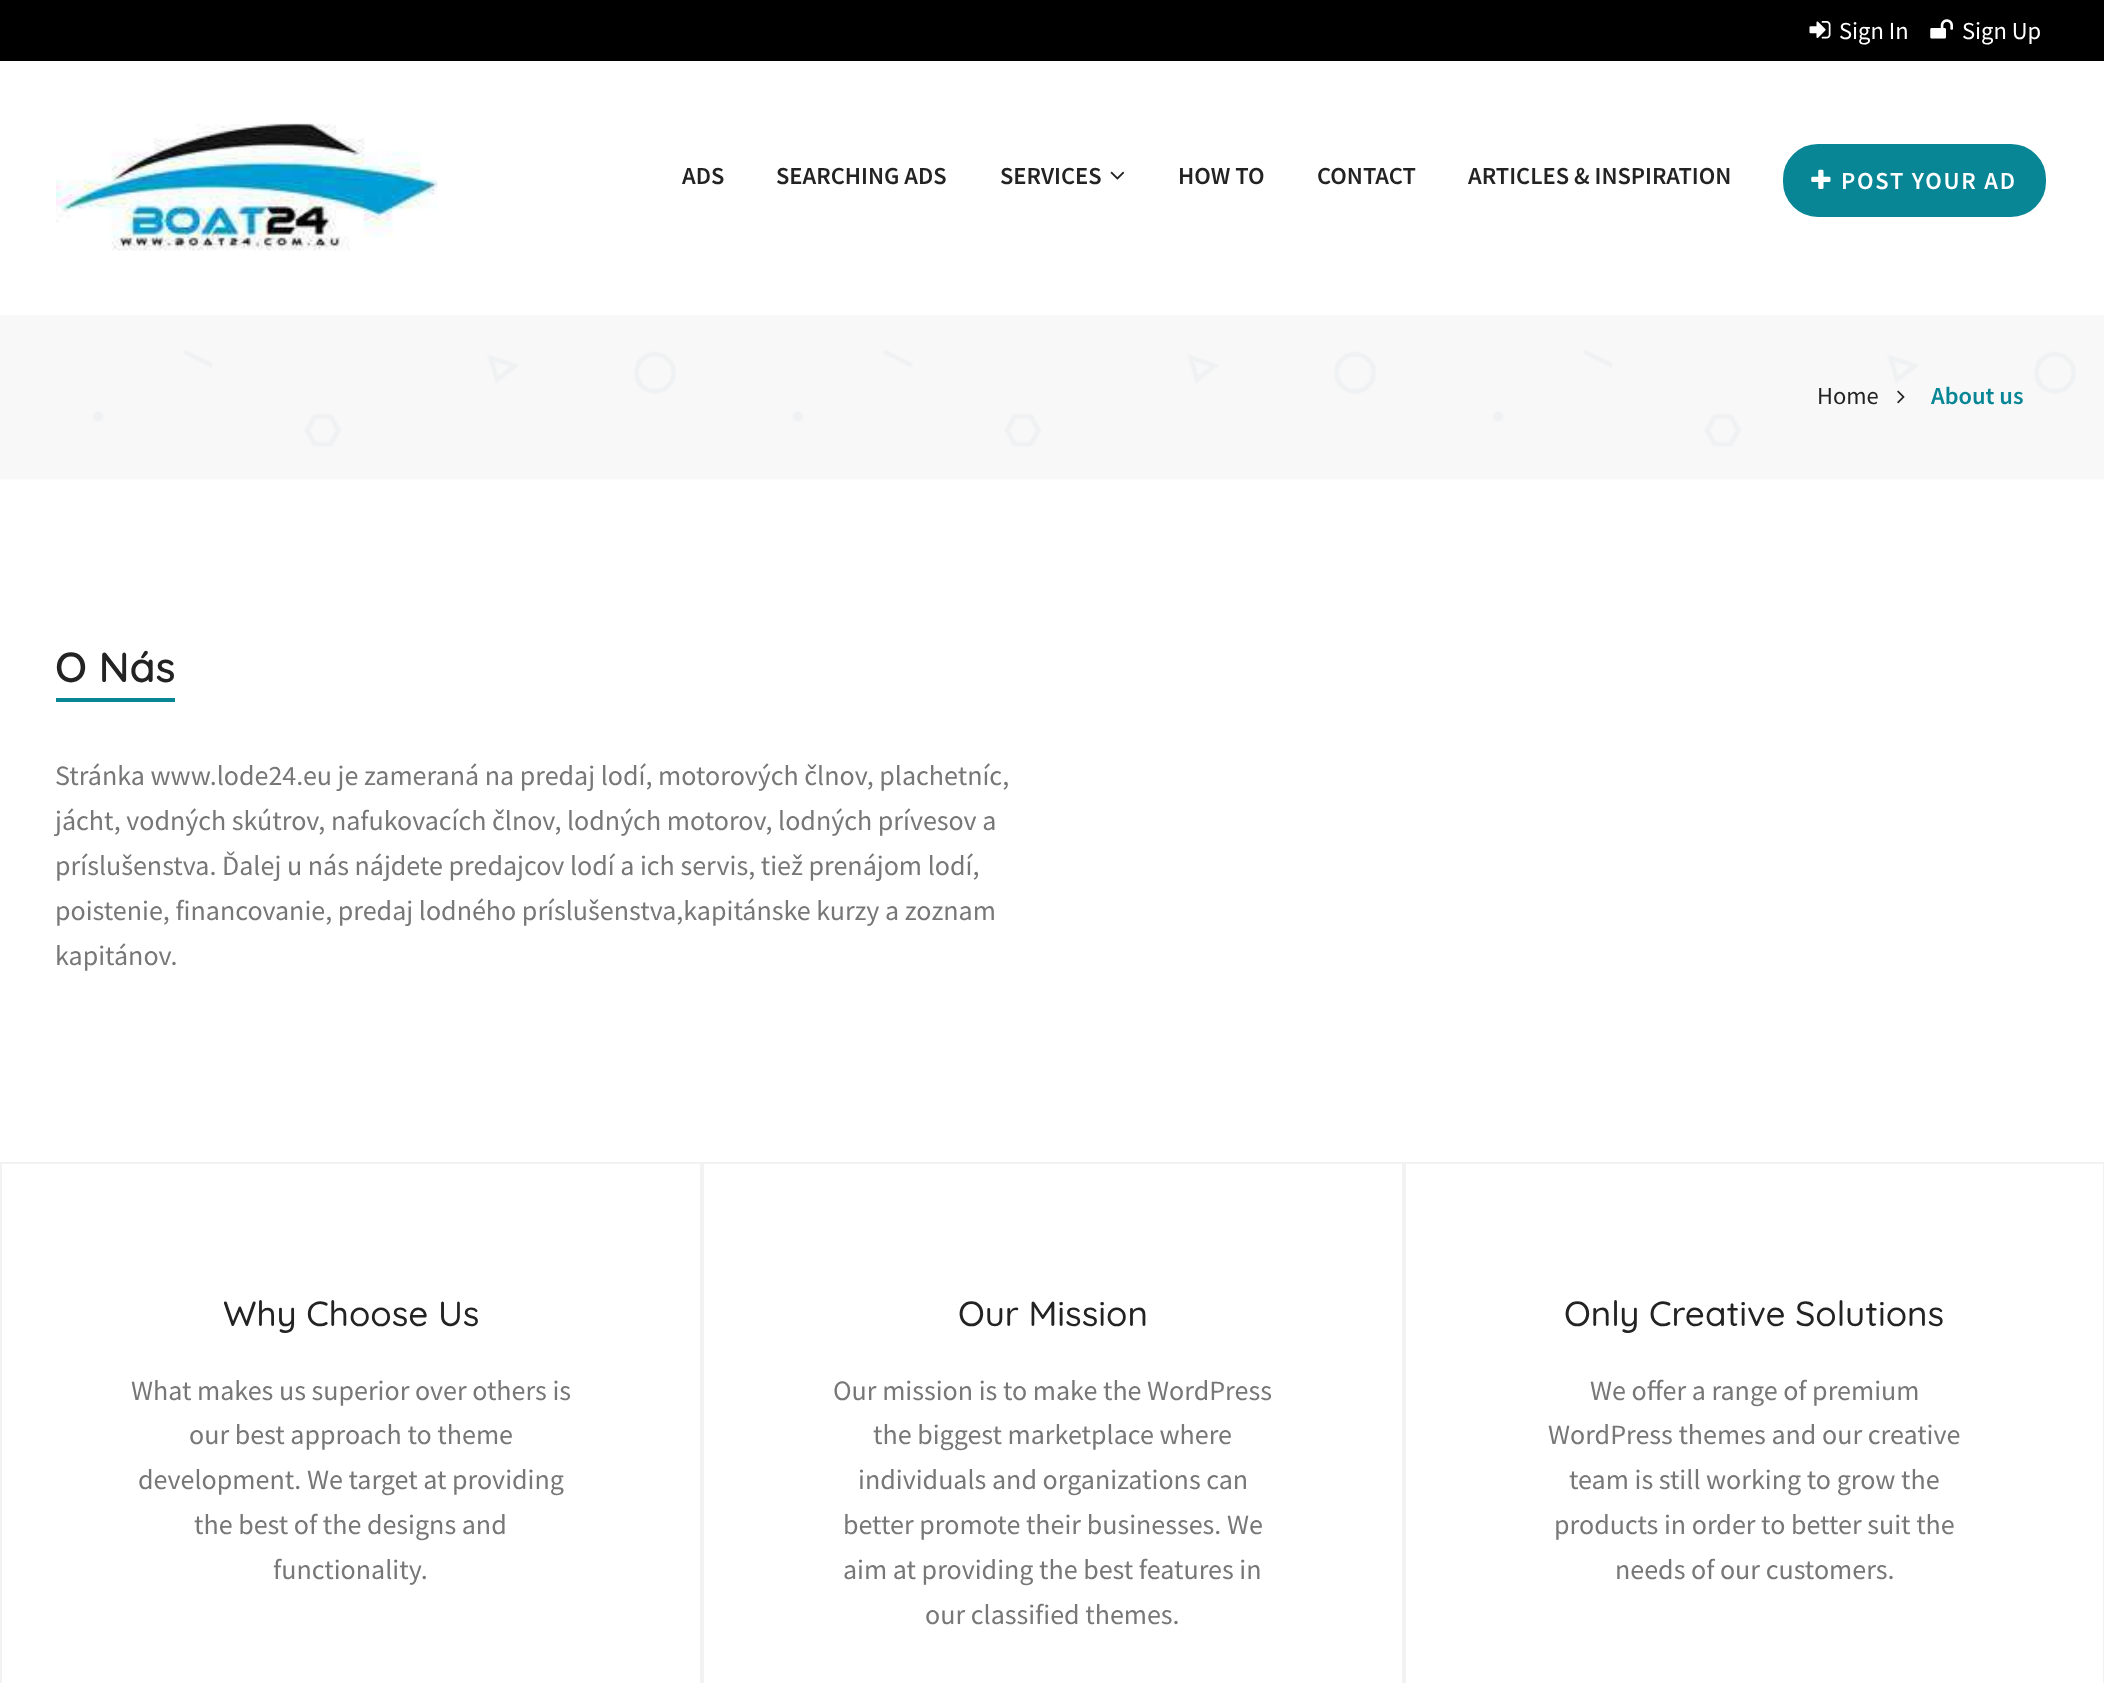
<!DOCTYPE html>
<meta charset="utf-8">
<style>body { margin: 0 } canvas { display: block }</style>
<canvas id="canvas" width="2104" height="1683"></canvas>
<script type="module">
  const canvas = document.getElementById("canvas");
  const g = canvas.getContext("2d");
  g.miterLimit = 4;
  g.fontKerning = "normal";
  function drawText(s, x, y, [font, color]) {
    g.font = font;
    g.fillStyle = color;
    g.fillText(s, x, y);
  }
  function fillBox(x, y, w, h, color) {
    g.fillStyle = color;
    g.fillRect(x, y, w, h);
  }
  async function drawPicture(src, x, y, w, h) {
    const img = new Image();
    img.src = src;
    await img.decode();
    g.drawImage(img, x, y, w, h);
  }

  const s1 = ["24.5px Source Sans Pro", "#FFFFFF"];
  const s2 = ["600 24.5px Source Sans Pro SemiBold", "#232323"];
  const s3 = ["600 24.5px Source Sans Pro SemiBold", "#FFFFFF"];
  const s4 = ["24.5px Source Sans Pro", "#232323"];
  const s5 = ["600 24.5px Source Sans Pro SemiBold", "#088695"];
  const s6 = ["600 42px Quicksand", "#232323"];
  const s7 = ["28px Source Sans Pro", "#777777"];
  const s8 = ["500 35px Quicksand", "#232323"];

  fillBox(0, 0, 2104, 1683, "#FFFFFF");
  fillBox(0, 0, 2104, 61, "#000000");
  await drawPicture("pic1.png", 1809, 21, 22, 18);
  drawText("Sign In", 1839, 39, s1);
  await drawPicture("pic2.png", 1930, 19, 23, 20);
  drawText("Sign Up", 1962, 39, s1);
  await drawPicture("pic3.png", 56, 123, 382, 128);
  drawText("ADS", 682, 184, s2);
  drawText("SEARCHING ADS", 776, 184, s2);
  drawText("SERVICES", 1000, 184, s2);
  await drawPicture("pic4.png", 1110, 171, 15, 9);
  drawText("HOW TO", 1178, 184, s2);
  drawText("CONTACT", 1317, 184, s2);
  drawText("ARTICLES & INSPIRATION", 1468, 184, s2);
  g.fillStyle = "#088695";
  g.beginPath();
  g.roundRect(1784, 145, 261, 71, 34);
  g.fill();
  g.strokeStyle = "#088695";
  g.lineWidth = 2;
  g.stroke();
  await drawPicture("pic5.png", 1811, 169, 20, 20);
  g.letterSpacing = "1.75px";
  drawText("POST YOUR AD", 1841, 189, s3);
  await drawPicture("pic6.png", 0, 315, 2104, 165);
  g.letterSpacing = "0px";
  drawText("Home", 1817, 404, s4);
  await drawPicture("pic7.png", 1897, 390, 8, 14);
  drawText("About us", 1931, 404, s5);
  fillBox(56, 698, 119, 4, "#088695");
  drawText("O Nás", 55, 682, s6);
  drawText("Stránka www.lode24.eu je zameraná na predaj lodí, motorových člnov, plachetníc,", 55, 785, s7);
  drawText("jácht, vodných skútrov, nafukovacích člnov, lodných motorov, lodných prívesov a", 55, 830, s7);
  drawText("príslušenstva. Ďalej u nás nájdete predajcov lodí a ich servis, tiež prenájom lodí,", 55, 875, s7);
  drawText("poistenie, financovanie, predaj lodného príslušenstva,kapitánske kurzy a zoznam", 55, 920, s7);
  drawText("kapitánov.", 55, 965, s7);
  g.strokeStyle = "#F2F2F2";
  g.strokeRect(1, 1163, 700, 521);
  drawText("Why Choose Us", 223, 1326, s8);
  drawText("What makes us superior over others is", 131, 1400, s7);
  drawText("our best approach to theme", 189, 1444, s7);
  drawText("development. We target at providing", 138, 1489, s7);
  drawText("the best of the designs and", 194, 1534, s7);
  drawText("functionality.", 273, 1579, s7);
  g.strokeRect(703, 1163, 700, 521);
  drawText("Our Mission", 958, 1326, s8);
  drawText("Our mission is to make the WordPress", 833, 1400, s7);
  drawText("the biggest marketplace where", 873, 1444, s7);
  drawText("individuals and organizations can", 858, 1489, s7);
  drawText("better promote their businesses. We", 843, 1534, s7);
  drawText("aim at providing the best features in", 843, 1579, s7);
  drawText("our classified themes.", 925, 1624, s7);
  g.strokeRect(1405, 1163, 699, 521);
  drawText("Only Creative Solutions", 1564, 1326, s8);
  drawText("We offer a range of premium", 1590, 1400, s7);
  drawText("WordPress themes and our creative", 1548, 1444, s7);
  drawText("team is still working to grow the", 1569, 1489, s7);
  drawText("products in order to better suit the", 1554, 1534, s7);
  drawText("needs of our customers.", 1615, 1579, s7);
</script>
